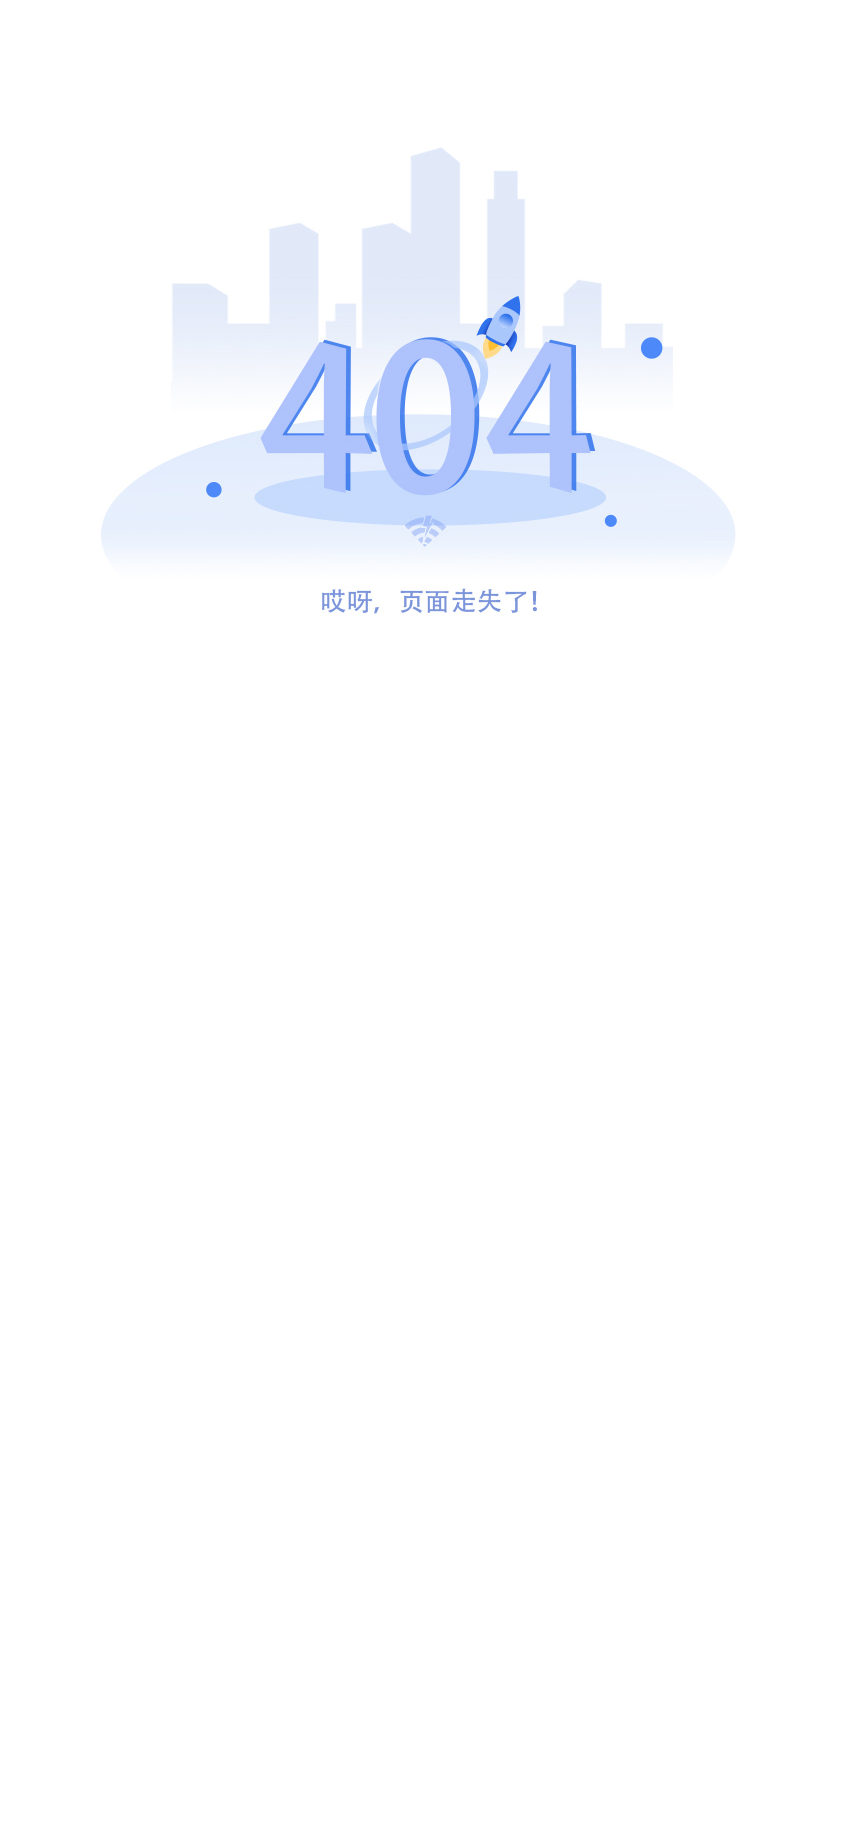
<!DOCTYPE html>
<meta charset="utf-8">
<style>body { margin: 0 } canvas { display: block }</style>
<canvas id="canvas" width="848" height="1829"></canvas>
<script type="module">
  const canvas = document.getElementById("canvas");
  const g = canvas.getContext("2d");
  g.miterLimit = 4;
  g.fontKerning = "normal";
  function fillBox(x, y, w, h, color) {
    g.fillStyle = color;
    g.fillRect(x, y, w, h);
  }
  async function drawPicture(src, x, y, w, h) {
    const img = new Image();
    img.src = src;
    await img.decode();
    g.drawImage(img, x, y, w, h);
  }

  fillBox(0, 0, 848, 1829, "#FFFFFF");
  await drawPicture("pic1.png", 101, 147, 635, 469);
</script>
